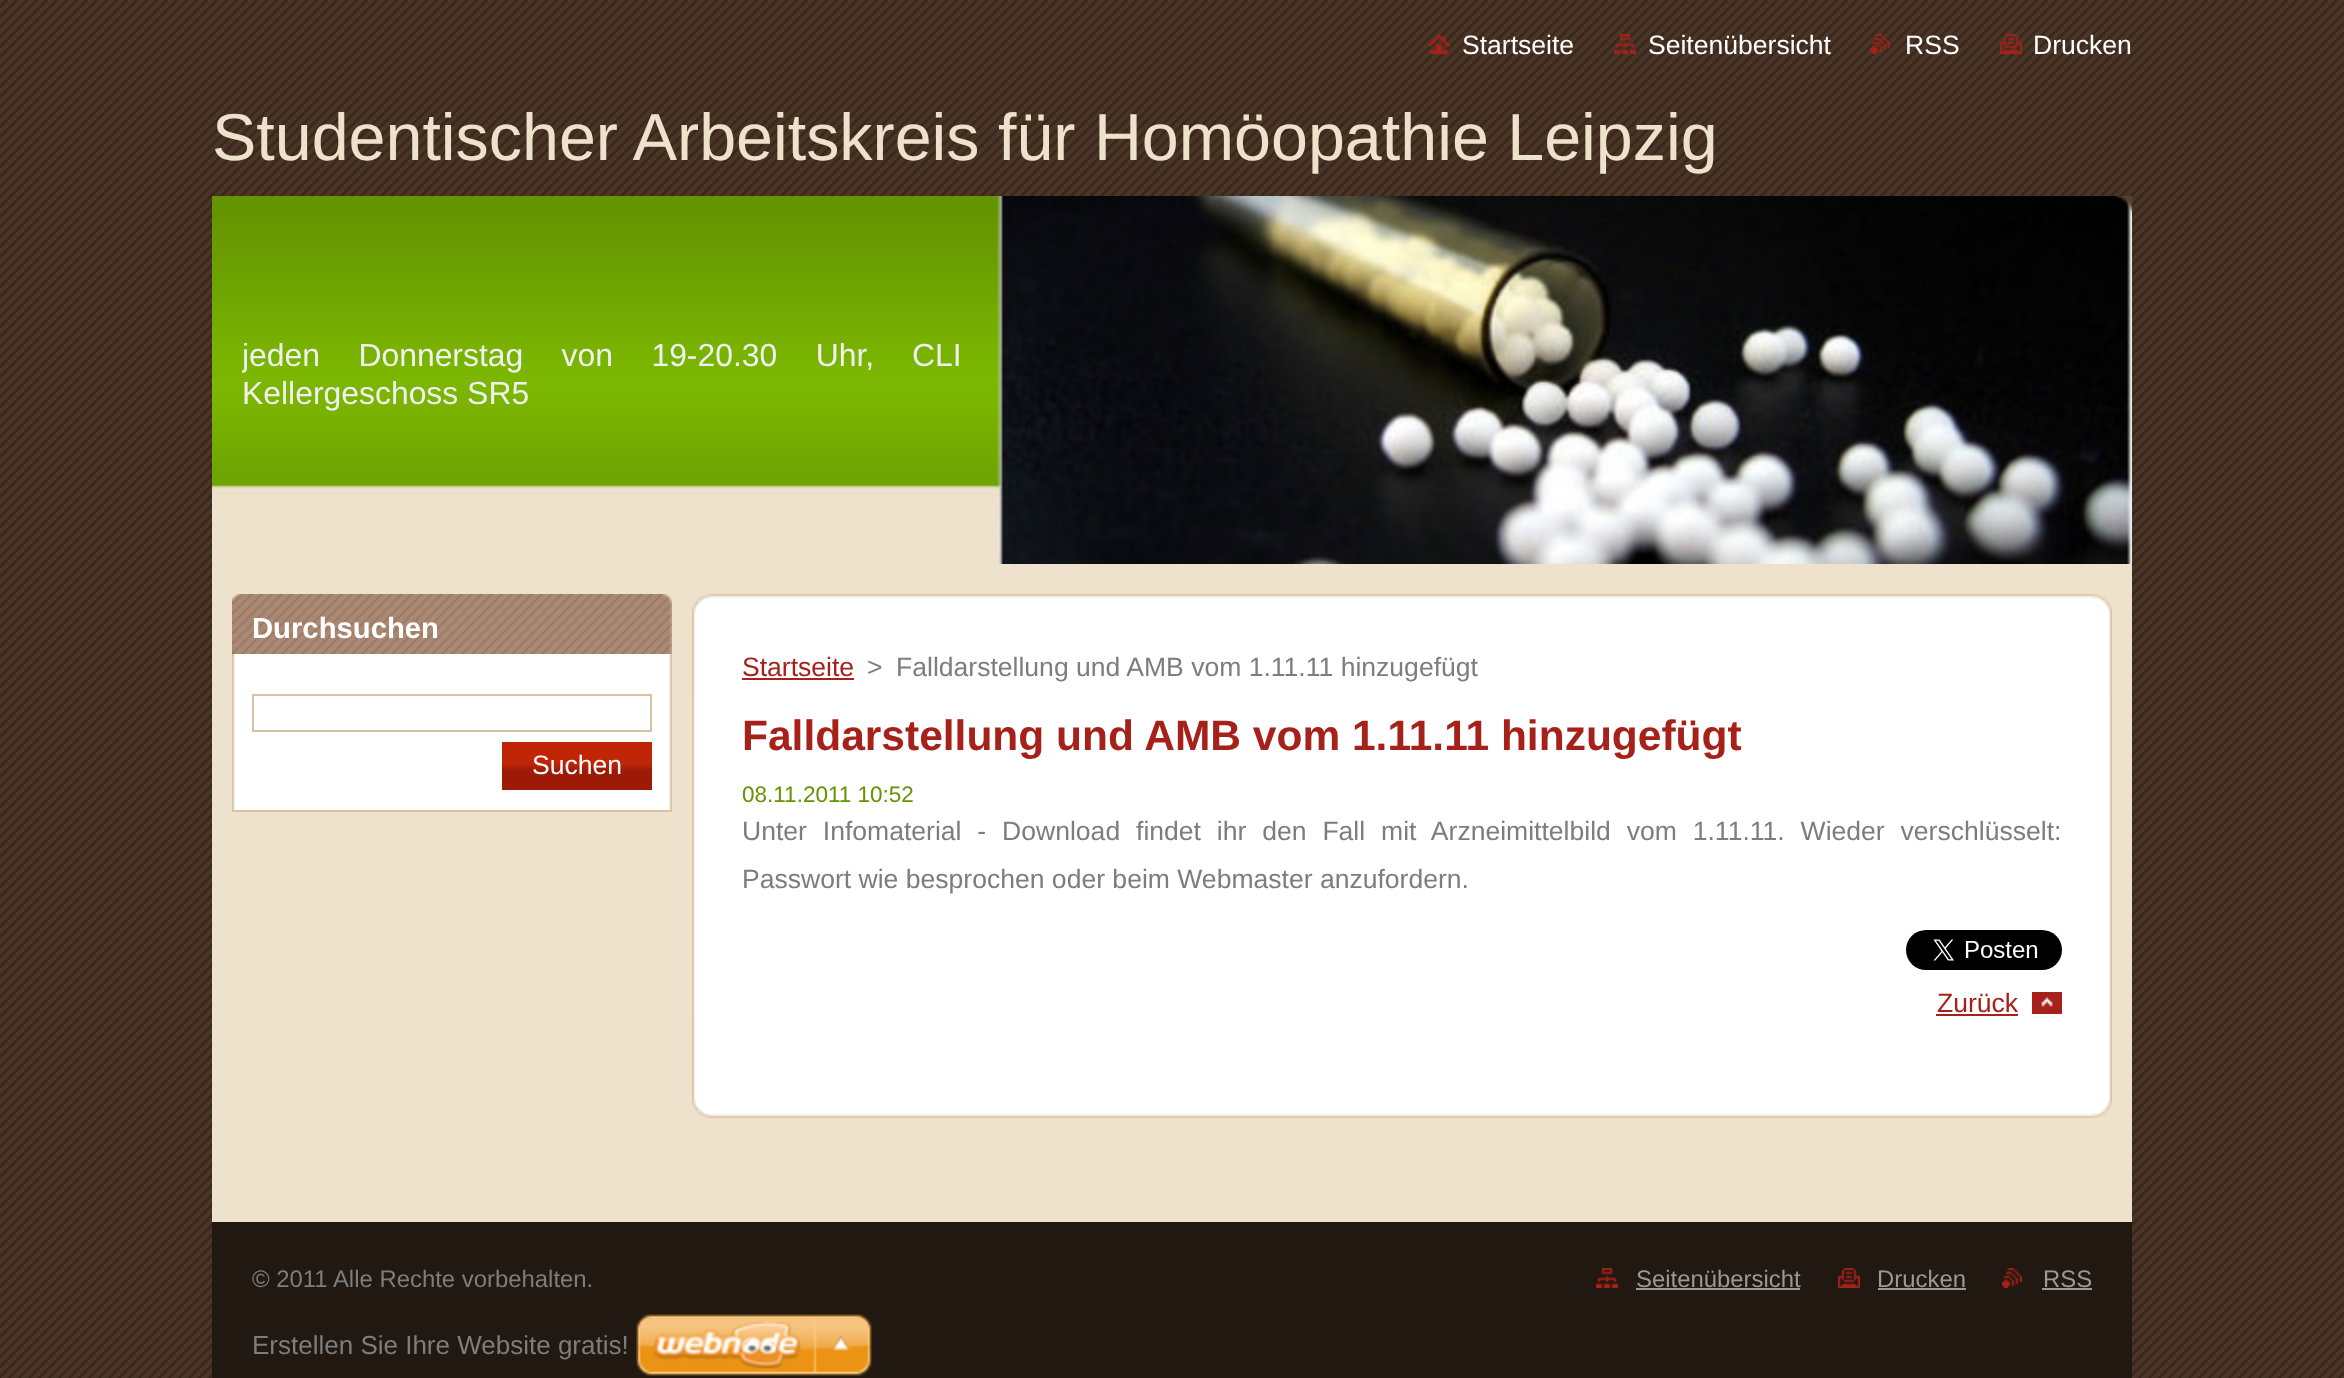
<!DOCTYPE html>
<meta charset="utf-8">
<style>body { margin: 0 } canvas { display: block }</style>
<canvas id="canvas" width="2344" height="1378"></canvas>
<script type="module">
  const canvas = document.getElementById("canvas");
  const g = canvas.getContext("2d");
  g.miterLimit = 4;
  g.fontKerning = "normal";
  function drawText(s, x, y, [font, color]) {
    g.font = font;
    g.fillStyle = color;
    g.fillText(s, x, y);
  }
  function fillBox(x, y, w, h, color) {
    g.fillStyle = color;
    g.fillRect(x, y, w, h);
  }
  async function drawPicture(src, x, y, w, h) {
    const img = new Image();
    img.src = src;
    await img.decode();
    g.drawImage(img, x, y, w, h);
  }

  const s1 = ["26.55px Liberation Sans", "#FFFFFF"];
  const s2 = ["66.4px Liberation Sans", "#EEE2CC"];
  const s3 = ["31.9px Liberation Sans", "#F0F0F0"];
  const s4 = ["bold 29.25px Liberation Sans", "#FFFFFF"];
  const s5 = ["26.55px Liberation Sans", "#A6211A"];
  const s6 = ["26.55px Liberation Sans", "#7D7D7D"];
  const s7 = ["bold 42.5px Liberation Sans", "#A6211A"];
  const s8 = ["22.5px Liberation Sans", "#649402"];
  const s9 = ["23.9px Liberation Sans", "#7D7D7D"];
  const s10 = ["23.9px Liberation Sans", "#999999"];
  const s11 = ["26px Liberation Sans", "#7D7D7D"];

  fillBox(0, 0, 2344, 1378, "#FFFFFF");
  await drawPicture("pic1.png", 0, 0, 2344, 1378);
  fillBox(212, 564, 1920, 658, "#EEE2CC");
  await drawPicture("pic2.png", 1428, 34, 22, 20);
  drawText("Startseite", 1462, 54, s1);
  await drawPicture("pic3.png", 1614, 34, 22, 20);
  drawText("Seitenübersicht", 1648, 54, s1);
  await drawPicture("pic4.png", 1870, 34, 20, 20);
  drawText("RSS", 1905, 54, s1);
  await drawPicture("pic5.png", 2000, 34, 22, 20);
  drawText("Drucken", 2033, 54, s1);
  drawText("Studentischer Arbeitskreis für Homöopathie Leipzig", 212, 160, s2);
  await drawPicture("pic6.png", 212, 196, 1920, 368);
  await drawPicture("pic7.png", 2115, 196, 17, 17);
  g.save();
  g.beginPath();
  g.rect(242, 336, 720, 76);
  g.clip();
  g.wordSpacing = "29.5px";
  drawText("jeden Donnerstag von 19-20.30 Uhr,", 242, 366, s3);
  g.restore();
  drawText("CLI", 912, 366, s3);
  drawText("Kellergeschoss SR5", 242, 404, s3);
  await drawPicture("pic8.png", 232, 654, 440, 156);
  fillBox(232, 810, 440, 2, "#D6C3A1");
  await drawPicture("pic9.png", 232, 594, 440, 60);
  drawText("Durchsuchen", 252, 638, s4);
  g.strokeStyle = "#D6C3A1";
  g.lineWidth = 2;
  g.strokeRect(253, 695, 398, 36);
  await drawPicture("pic10.png", 502, 742, 150, 48);
  drawText("Suchen", 532, 774, s1);
  await drawPicture("pic11.png", 692, 594, 1420, 100);
  await drawPicture("pic12.png", 692, 1018, 1420, 100);
  await drawPicture("pic13.png", 692, 694, 1420, 324);
  drawText("Startseite", 742, 676, s5);
  fillBox(742, 678, 112, 2, "#A6211A");
  drawText(">", 867, 676, s6);
  drawText("Falldarstellung und AMB vom 1.11.11 hinzugefügt", 896, 676, s6);
  drawText("Falldarstellung und AMB vom 1.11.11 hinzugefügt", 742, 750, s7);
  drawText("08.11.2011 10:52", 742, 802, s8);
  g.wordSpacing = "8.5px";
  drawText("Unter Infomaterial - Download findet ihr den Fall mit Arzneimittelbild vom 1.11.11. Wieder verschlüsselt:", 742, 840, s6);
  g.wordSpacing = "0px";
  drawText("Passwort wie besprochen oder beim Webmaster anzufordern.", 742, 888, s6);
  await drawPicture("pic14.png", 1906, 930, 156, 40);
  await drawPicture("pic15.png", 2032, 992, 30, 22);
  drawText("Zurück", 1937, 1012, s5);
  fillBox(1936, 1014, 82, 2, "#A6211A");
  fillBox(212, 1222, 1920, 156, "#201811");
  drawText("© 2011 Alle Rechte vorbehalten.", 252, 1287, s9);
  await drawPicture("pic16.png", 1596, 1268, 22, 20);
  drawText("Seitenübersicht", 1636, 1287, s10);
  fillBox(1636, 1288, 164, 2, "#999999");
  await drawPicture("pic17.png", 1838, 1268, 22, 20);
  drawText("Drucken", 1877, 1287, s10);
  fillBox(1878, 1288, 88, 2, "#999999");
  await drawPicture("pic18.png", 2002, 1268, 20, 20);
  drawText("RSS", 2043, 1287, s10);
  fillBox(2042, 1288, 50, 2, "#999999");
  drawText("Erstellen Sie Ihre Website gratis!", 252, 1354, s11);
  await drawPicture("pic19.png", 636, 1314, 236, 62);
</script>
